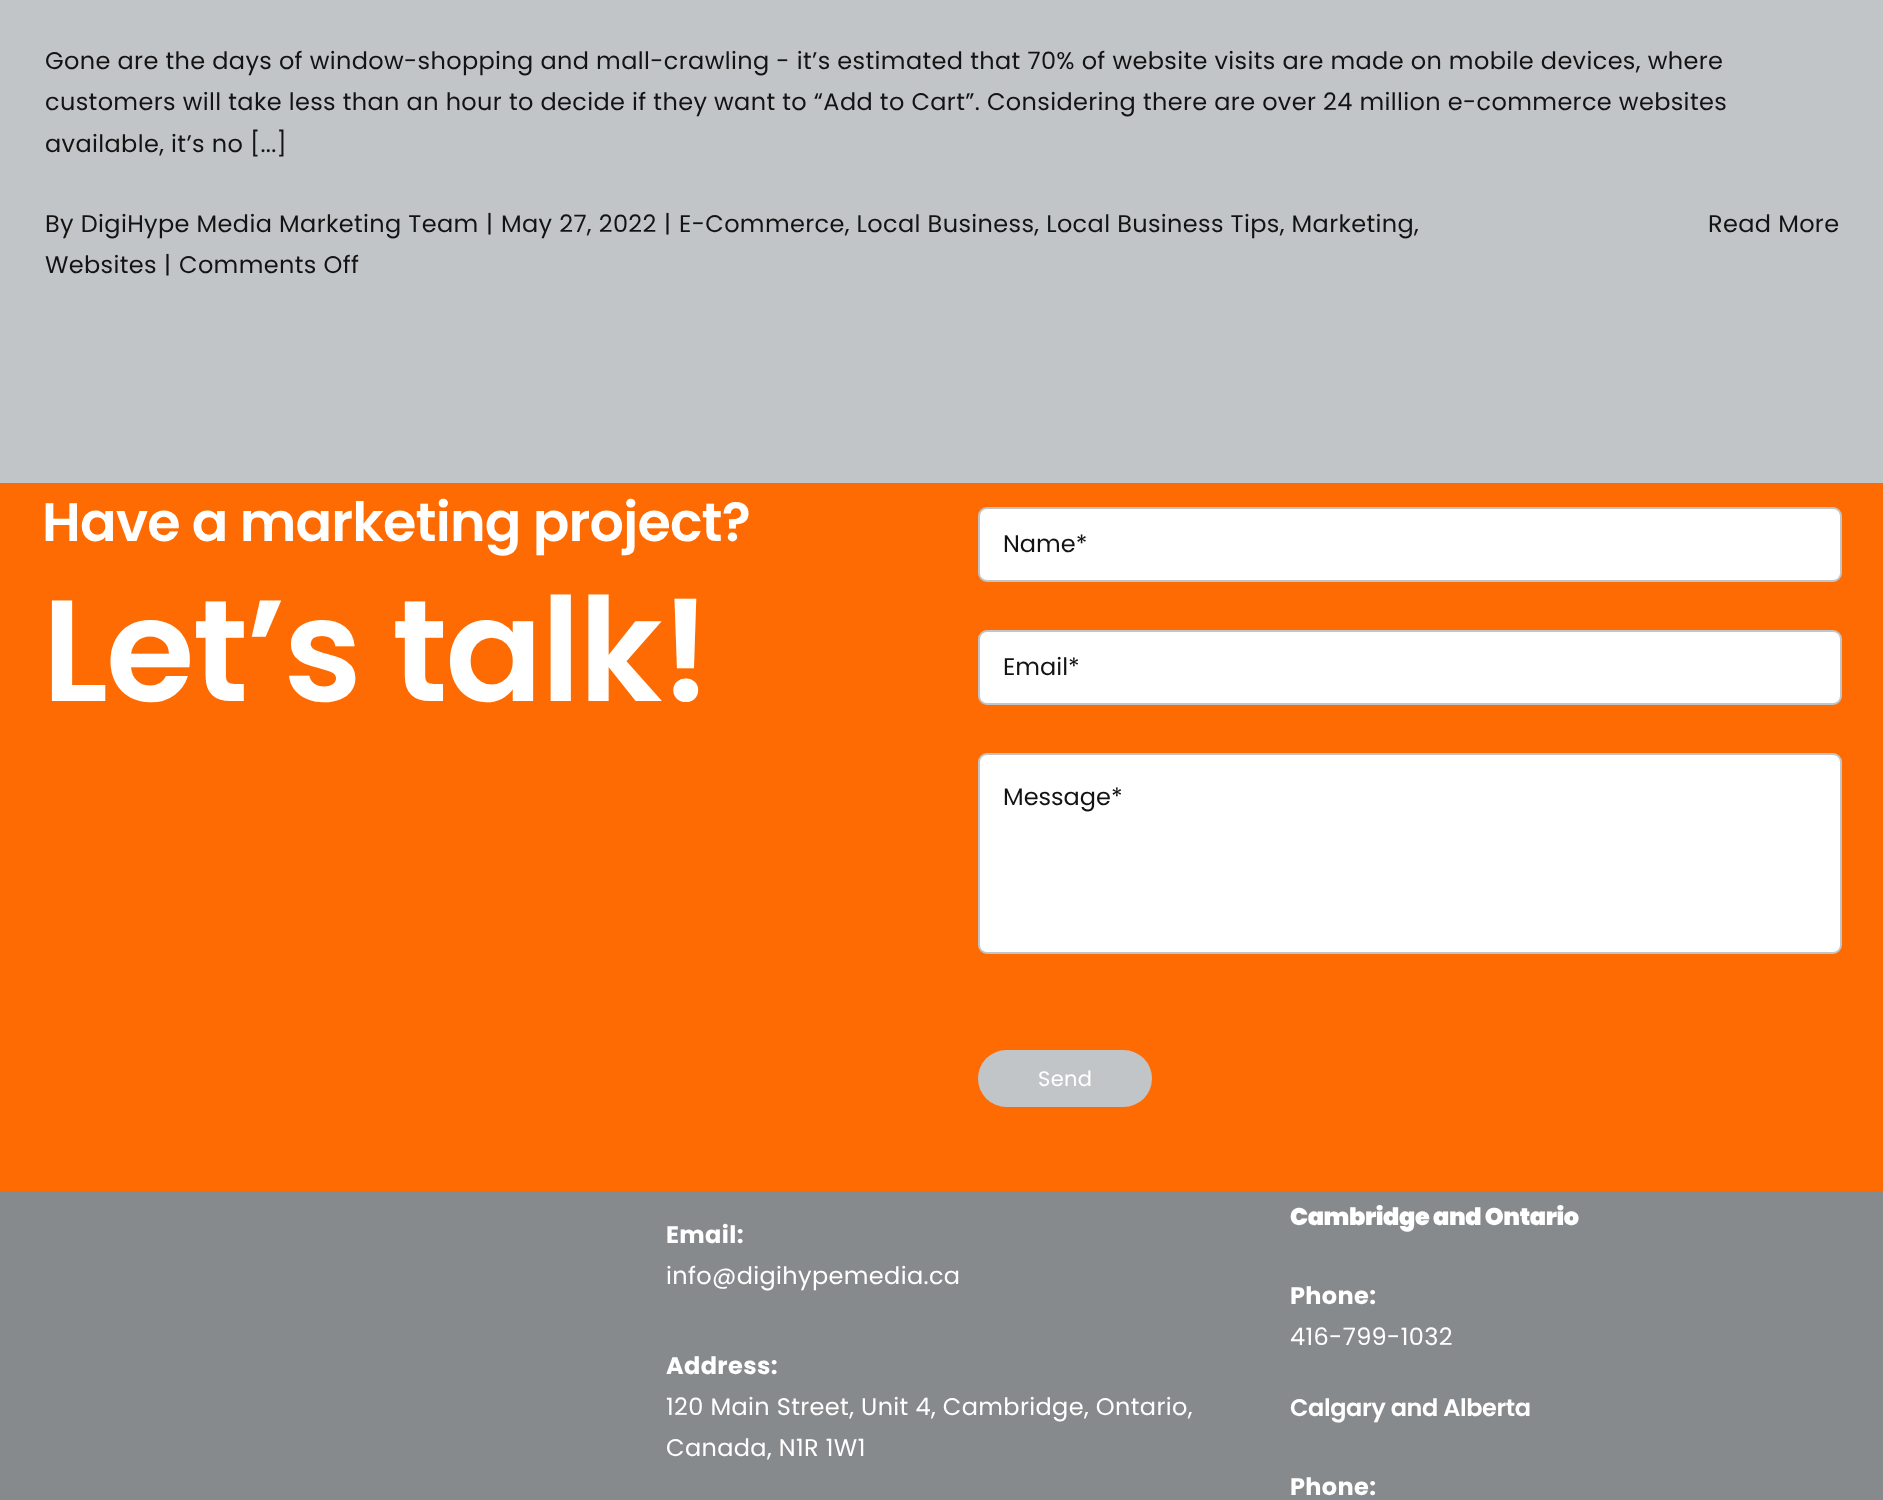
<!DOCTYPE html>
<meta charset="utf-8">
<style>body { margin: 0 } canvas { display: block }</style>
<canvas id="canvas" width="1883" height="1500"></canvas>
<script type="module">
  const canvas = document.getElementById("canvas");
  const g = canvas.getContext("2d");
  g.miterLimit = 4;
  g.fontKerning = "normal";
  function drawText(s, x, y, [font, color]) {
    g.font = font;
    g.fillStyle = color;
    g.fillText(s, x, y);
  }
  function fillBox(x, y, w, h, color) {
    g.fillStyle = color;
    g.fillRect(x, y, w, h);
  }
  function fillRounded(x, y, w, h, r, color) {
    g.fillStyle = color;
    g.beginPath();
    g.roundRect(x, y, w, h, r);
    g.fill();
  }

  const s1 = ["24px Poppins", "#131313"];
  const s2 = ["600 54px Poppins", "#FFFFFF"];
  const s3 = ["600 144px Poppins", "#FFFFFF"];
  const s4 = ["21px Poppins", "#FFFFFF"];
  const s5 = ["bold 24px Poppins", "#FFFFFF"];
  const s6 = ["24px Poppins", "#FFFFFF"];
  const s7 = ["900 24px Poppins", "#FFFFFF"];
  const s8 = ["600 24px Poppins", "#FFFFFF"];

  fillBox(0, 0, 1883, 1500, "#C1C5C7");
  g.letterSpacing = "0.36px";
  drawText("Gone are the days of window-shopping and mall-crawling - it’s estimated that 70% of website visits are made on mobile devices, where", 45, 69, s1);
  drawText("customers will take less than an hour to decide if they want to “Add to Cart”. Considering there are over 24 million e-commerce websites", 45, 110, s1);
  drawText("available, it’s no [...]", 45, 152, s1);
  drawText("By DigiHype Media Marketing Team", 45, 232, s1);
  drawText("|", 486, 232, s1);
  drawText("May 27, 2022", 501, 232, s1);
  drawText("|", 664, 232, s1);
  drawText("E-Commerce, Local Business, Local Business Tips, Marketing,", 679, 232, s1);
  drawText("Websites", 45, 273, s1);
  drawText("|", 164, 273, s1);
  drawText("Comments Off", 179, 273, s1);
  drawText("Read More", 1708, 232, s1);
  fillBox(0, 483, 1883, 708, "#FE6B02");
  g.letterSpacing = "-0.8px";
  drawText("Have a marketing project?", 42, 541, s2);
  g.letterSpacing = "-2.25px";
  drawText("Let’s talk!", 42, 701, s3);
  g.beginPath();
  g.roundRect(979, 508, 862, 73, 8);
  g.fill();
  g.strokeStyle = "#C1C5C7";
  g.lineWidth = 2;
  g.stroke();
  g.letterSpacing = "0px";
  drawText("Name*", 1003, 552, s1);
  g.fillStyle = "#FFFFFF";
  g.beginPath();
  g.roundRect(979, 631, 862, 73, 8);
  g.fill();
  g.stroke();
  drawText("Email*", 1003, 675, s1);
  g.fillStyle = "#FFFFFF";
  g.beginPath();
  g.roundRect(979, 754, 862, 199, 8);
  g.fill();
  g.stroke();
  drawText("Message*", 1003, 805, s1);
  fillRounded(978, 1050, 174, 57, 28.5, "#C1C5C7");
  g.letterSpacing = "0.36px";
  drawText("Send", 1038, 1086, s4);
  fillBox(0, 1191, 1883, 309, "#878A8C");
  drawText("Email:", 666, 1243, s5);
  drawText("info@digihypemedia.ca", 666, 1284, s6);
  drawText("Address:", 666, 1374, s5);
  drawText("120 Main Street, Unit 4, Cambridge, Ontario,", 666, 1415, s6);
  drawText("Canada, N1R 1W1", 666, 1456, s6);
  g.letterSpacing = "-0.4px";
  drawText("Cambridge and Ontario", 1290, 1225, s7);
  g.letterSpacing = "0.36px";
  drawText("Phone:", 1290, 1304, s5);
  drawText("416-799-1032", 1290, 1345, s6);
  g.letterSpacing = "-0.4px";
  drawText("Calgary and Alberta", 1290, 1416, s8);
  g.letterSpacing = "0.36px";
  drawText("Phone:", 1290, 1495, s5);
</script>
